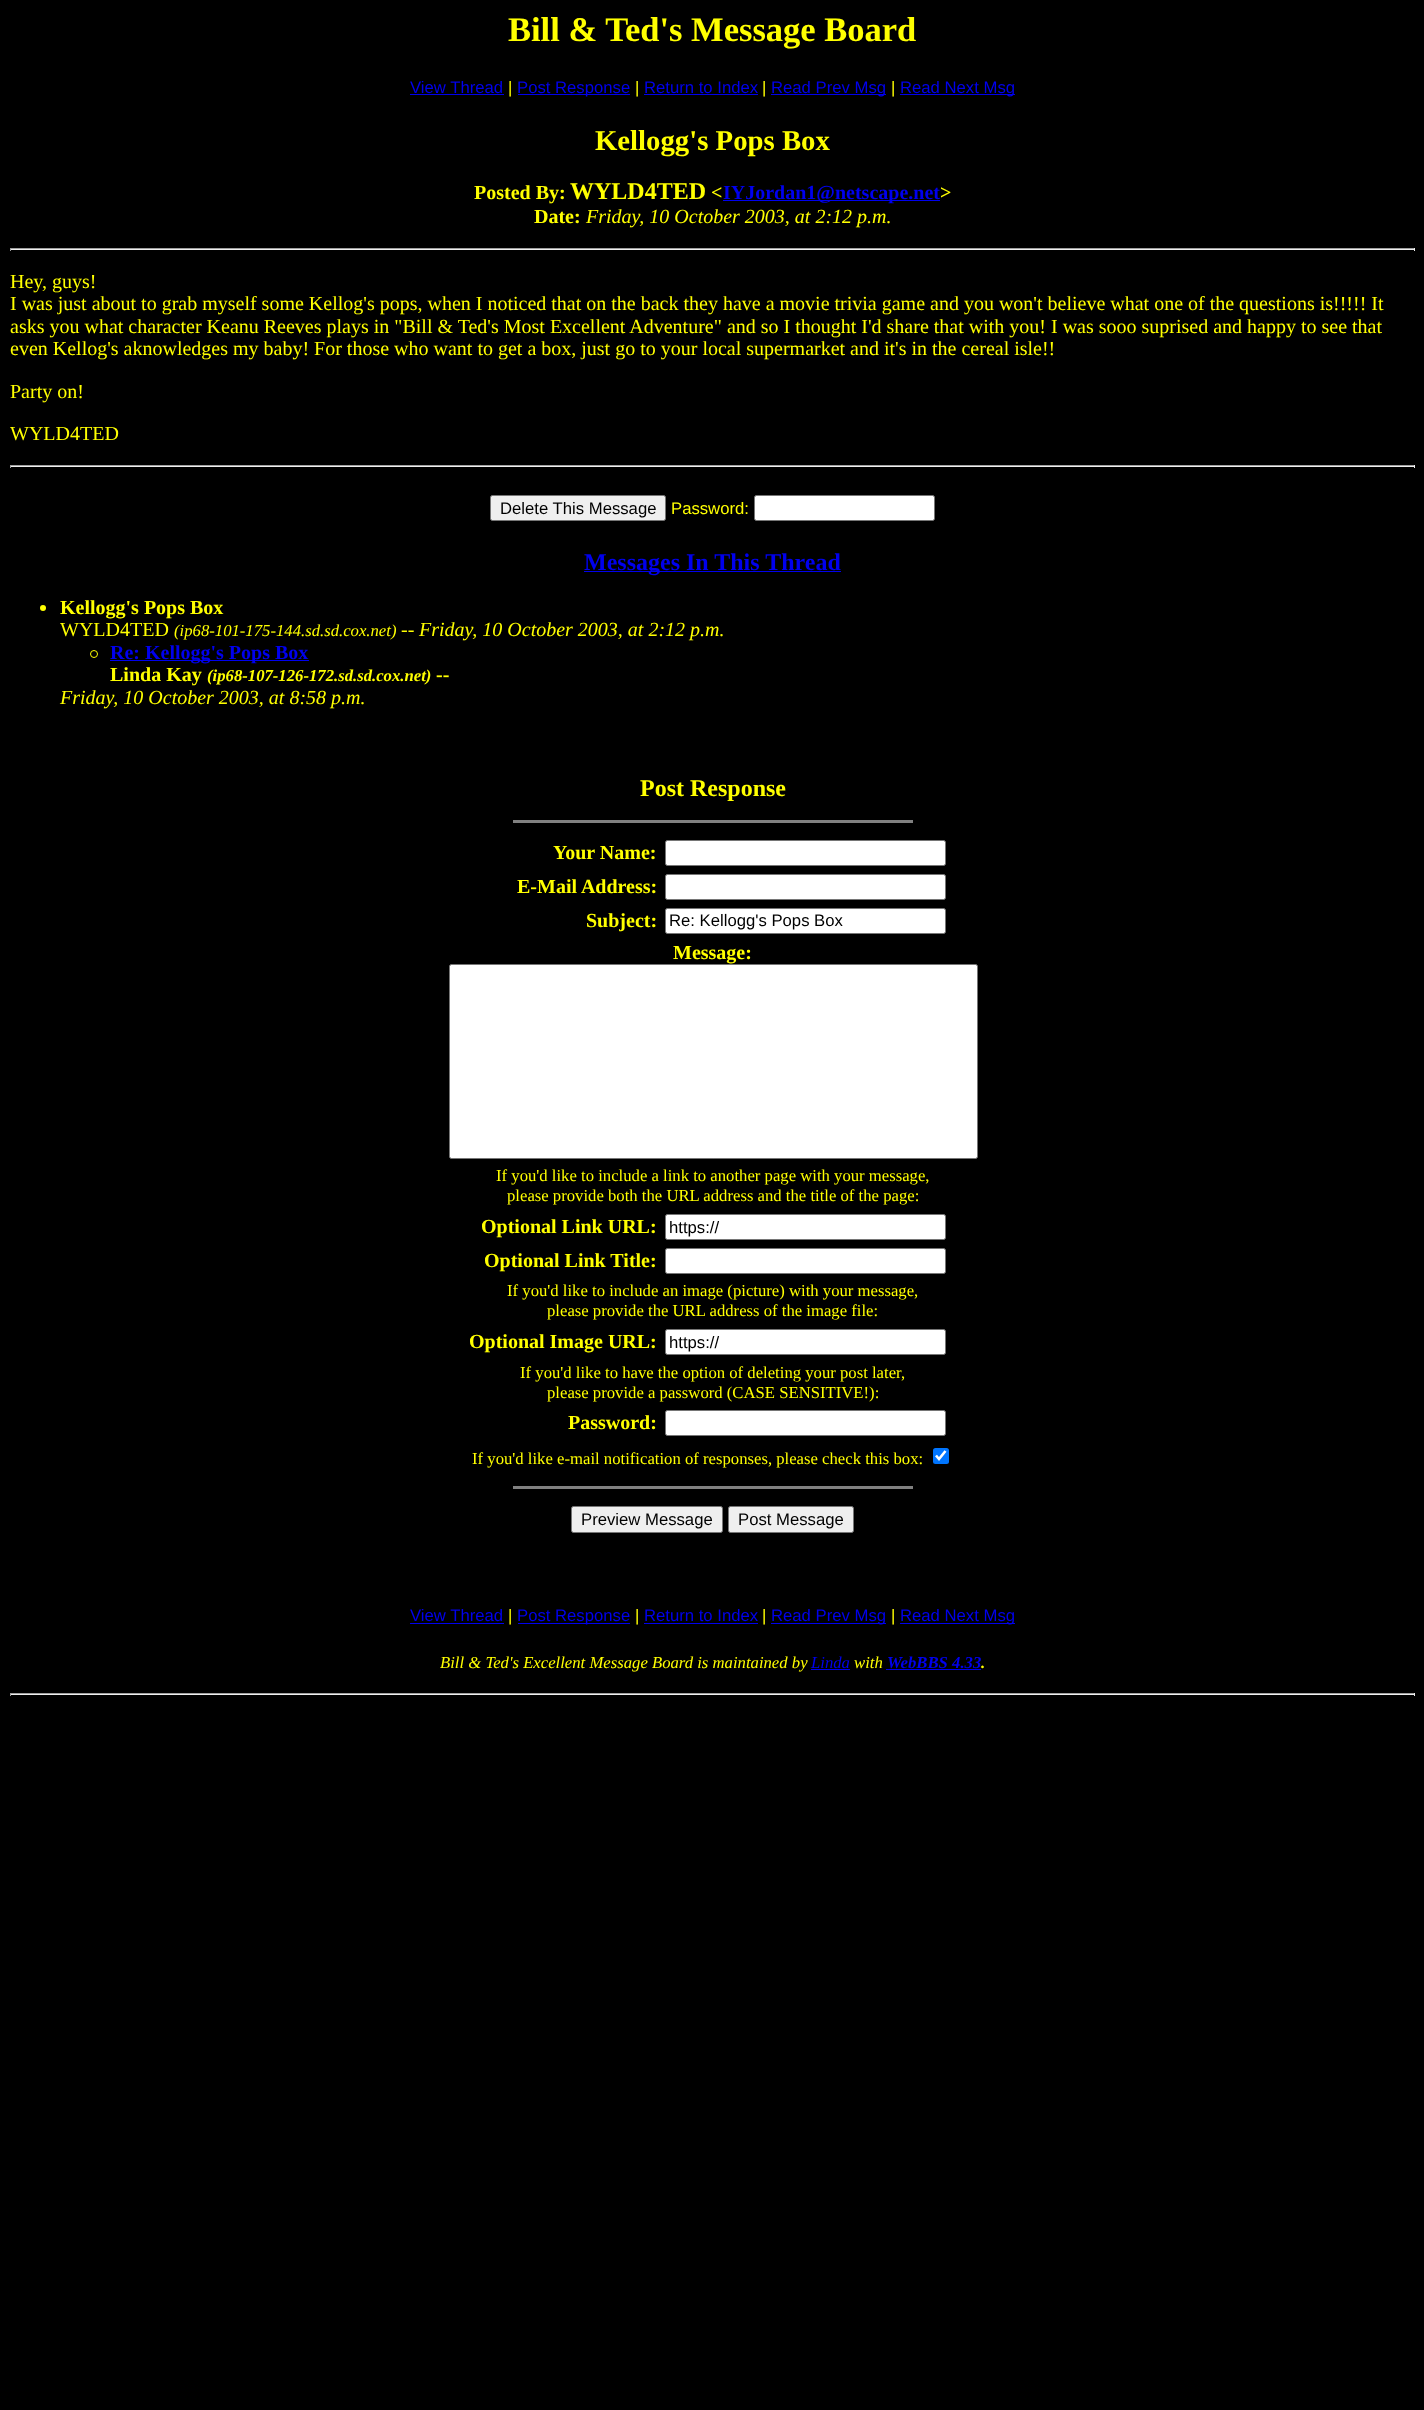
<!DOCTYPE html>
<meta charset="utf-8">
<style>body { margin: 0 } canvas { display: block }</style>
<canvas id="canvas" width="1424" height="2410"></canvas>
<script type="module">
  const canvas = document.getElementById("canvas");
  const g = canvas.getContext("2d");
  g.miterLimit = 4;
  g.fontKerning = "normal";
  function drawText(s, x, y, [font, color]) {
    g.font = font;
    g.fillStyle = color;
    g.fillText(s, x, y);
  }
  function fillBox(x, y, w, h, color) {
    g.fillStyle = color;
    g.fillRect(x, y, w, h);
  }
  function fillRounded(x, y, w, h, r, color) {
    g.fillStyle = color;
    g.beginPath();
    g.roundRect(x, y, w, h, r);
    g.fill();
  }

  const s1 = ["bold 34.5px Liberation Serif", "#FFFF00"];
  const s2 = ["16.7px Liberation Sans", "#0000EE"];
  const s3 = ["16.7px Liberation Sans", "#FFFF00"];
  const s4 = ["bold 28.75px Liberation Serif", "#FFFF00"];
  const s5 = ["bold 20px Liberation Serif", "#FFFF00"];
  const s6 = ["bold 24px Liberation Serif", "#FFFF00"];
  const s7 = ["bold 20px Liberation Serif", "#0000EE"];
  const s8 = ["italic 20px Liberation Serif", "#FFFF00"];
  const s9 = ["20px Liberation Serif", "#FFFF00"];
  const s10 = ["16.7px Liberation Sans", "#000000"];
  const s11 = ["bold 24px Liberation Serif", "#0000EE"];
  const s12 = ["italic 16.7px Liberation Serif", "#FFFF00"];
  const s13 = ["italic bold 16.7px Liberation Serif", "#FFFF00"];
  const s14 = ["16.7px Liberation Serif", "#FFFF00"];
  const s15 = ["italic 16.7px Liberation Serif", "#0000EE"];
  const s16 = ["italic bold 16.7px Liberation Serif", "#0000EE"];

  fillBox(0, 0, 1424, 2410, "#000000");
  drawText("Bill & Ted's Message Board", 508, 41, s1);
  drawText("View Thread", 410, 93, s2);
  fillBox(410, 94, 94, 1, "#0000EE");
  drawText("|", 508, 93, s3);
  fillBox(518, 94, 112, 1, "#0000EE");
  drawText("Post Response", 517, 93, s2);
  drawText("|", 635, 93, s3);
  drawText("Return to Index", 644, 93, s2);
  fillBox(644, 94, 114, 1, "#0000EE");
  drawText("|", 762, 93, s3);
  fillBox(771, 94, 115, 1, "#0000EE");
  drawText("Read Prev Msg", 771, 93, s2);
  drawText("|", 891, 93, s3);
  fillBox(900, 94, 115, 1, "#0000EE");
  drawText("Read Next Msg", 900, 93, s2);
  drawText("Kellogg's Pops Box", 595, 150, s4);
  drawText("Posted By:", 474, 199, s5);
  drawText("WYLD4TED", 570, 199, s6);
  drawText("<", 711, 199, s5);
  fillBox(723, 200, 217, 1, "#0000EE");
  drawText("IYJordan1@netscape.net", 723, 199, s7);
  drawText(">", 940, 199, s5);
  drawText("Date:", 534, 223, s5);
  drawText("Friday, 10 October 2003, at 2:12 p.m.", 586, 223, s8);
  fillBox(10, 248, 1405, 1, "#9F9F9F");
  fillBox(1414, 248, 1, 3, "#EEEEEE");
  fillBox(10, 249, 1405, 1, "#EEEEEE");
  fillBox(10, 248, 1, 3, "#9F9F9F");
  drawText("Hey, guys!", 10, 288, s9);
  drawText("I was just about to grab myself some Kellog's pops, when I noticed that on the back they have a movie trivia game and you won't believe what one of the questions is!!!!! It", 10, 310, s9);
  drawText("asks you what character Keanu Reeves plays in \"Bill & Ted's Most Excellent Adventure\" and so I thought I'd share that with you! I was sooo suprised and happy to see that", 10, 333, s9);
  drawText("even Kellog's aknowledges my baby! For those who want to get a box, just go to your local supermarket and it's in the cereal isle!!", 10, 355, s9);
  drawText("Party on!", 10, 398, s9);
  drawText("WYLD4TED", 10, 440, s9);
  fillBox(10, 465, 1405, 1, "#9F9F9F");
  fillBox(1414, 465, 1, 3, "#EEEEEE");
  fillBox(10, 466, 1405, 1, "#EEEEEE");
  fillBox(10, 465, 1, 3, "#9F9F9F");
  g.fillStyle = "#EFEFEF";
  g.beginPath();
  g.roundRect(490.5, 495.5, 175, 25, 2);
  g.fill();
  g.strokeStyle = "#767676";
  g.stroke();
  drawText("Delete This Message", 500, 514, s10);
  drawText("Password:", 671, 514, s3);
  g.fillStyle = "#FFFFFF";
  g.beginPath();
  g.roundRect(754.5, 495.5, 180, 25, 2);
  g.fill();
  g.stroke();
  fillBox(584, 571, 257, 1, "#0000EE");
  drawText("Messages In This Thread", 584, 570, s11);
  g.fillStyle = "#FFFF00";
  g.beginPath();
  g.arc(43, 608, 3, 0, Math.PI * 2);
  g.fill();
  drawText("Kellogg's Pops Box", 60, 614, s5);
  drawText("WYLD4TED", 60, 636, s9);
  drawText("(ip68-101-175-144.sd.sd.cox.net)", 174, 636, s12);
  drawText("--", 401, 636, s9);
  drawText("Friday, 10 October 2003, at 2:12 p.m.", 419, 636, s8);
  g.beginPath();
  g.arc(94, 654, 3.5, 0, Math.PI * 2);
  g.strokeStyle = "#FFFF00";
  g.stroke();
  fillBox(110, 660, 199, 1, "#0000EE");
  drawText("Re: Kellogg's Pops Box", 110, 659, s7);
  drawText("Linda Kay", 110, 681, s5);
  drawText("(ip68-107-126-172.sd.sd.cox.net)", 207, 681, s13);
  drawText("--", 436, 681, s5);
  drawText("Friday, 10 October 2003, at 8:58 p.m.", 60, 704, s8);
  drawText("Post Response", 640, 796, s6);
  fillBox(513, 820, 400, 3, "#808080");
  drawText("Your Name:", 553, 859, s5);
  g.fillStyle = "#FFFFFF";
  g.beginPath();
  g.roundRect(665.5, 840.5, 280, 25, 2);
  g.fill();
  g.strokeStyle = "#767676";
  g.stroke();
  drawText("E-Mail Address:", 517, 893, s5);
  g.fillStyle = "#FFFFFF";
  g.beginPath();
  g.roundRect(665.5, 874.5, 280, 25, 2);
  g.fill();
  g.stroke();
  drawText("Subject:", 586, 927, s5);
  g.fillStyle = "#FFFFFF";
  g.beginPath();
  g.roundRect(665.5, 908.5, 280, 25, 2);
  g.fill();
  g.stroke();
  drawText("Re: Kellogg's Pops Box", 669, 926, s10);
  drawText("Message:", 673, 959, s5);
  g.fillStyle = "#FFFFFF";
  g.beginPath();
  g.roundRect(449.5, 964.5, 528, 194, 2);
  g.fill();
  g.stroke();
  drawText("If you'd like to include a link to another page with your message,", 496, 1181, s14);
  drawText("please provide both the URL address and the title of the page:", 507, 1201, s14);
  drawText("Optional Link URL:", 481, 1233, s5);
  g.fillStyle = "#FFFFFF";
  g.beginPath();
  g.roundRect(665.5, 1214.5, 280, 25, 2);
  g.fill();
  g.stroke();
  drawText("https://", 669, 1233, s10);
  drawText("Optional Link Title:", 484, 1267, s5);
  g.fillStyle = "#FFFFFF";
  g.beginPath();
  g.roundRect(665.5, 1248.5, 280, 25, 2);
  g.fill();
  g.stroke();
  drawText("If you'd like to include an image (picture) with your message,", 507, 1296, s14);
  drawText("please provide the URL address of the image file:", 547, 1316, s14);
  drawText("Optional Image URL:", 469, 1348, s5);
  g.fillStyle = "#FFFFFF";
  g.beginPath();
  g.roundRect(665.5, 1329.5, 280, 25, 2);
  g.fill();
  g.stroke();
  drawText("https://", 669, 1348, s10);
  drawText("If you'd like to have the option of deleting your post later,", 520, 1378, s14);
  drawText("please provide a password (CASE SENSITIVE!):", 547, 1398, s14);
  drawText("Password:", 568, 1429, s5);
  g.fillStyle = "#FFFFFF";
  g.beginPath();
  g.roundRect(665.5, 1410.5, 280, 25, 2);
  g.fill();
  g.stroke();
  drawText("If you'd like e-mail notification of responses, please check this box:", 472, 1464, s14);
  fillRounded(933, 1448, 16, 16, 2.5, "#0075FF");
  g.beginPath();
  g.moveTo(936, 1455.5);
  g.lineTo(939, 1459);
  g.lineTo(945.5, 1451);
  g.strokeStyle = "#FFFFFF";
  g.lineWidth = 2.6;
  g.stroke();
  fillBox(513, 1486, 400, 3, "#808080");
  g.fillStyle = "#EFEFEF";
  g.beginPath();
  g.roundRect(571.5, 1506.5, 151, 26, 2);
  g.fill();
  g.strokeStyle = "#767676";
  g.lineWidth = 1;
  g.stroke();
  drawText("Preview Message", 581, 1525, s10);
  g.fillStyle = "#EFEFEF";
  g.beginPath();
  g.roundRect(728.5, 1506.5, 125, 26, 2);
  g.fill();
  g.stroke();
  drawText("Post Message", 738, 1525, s10);
  drawText("View Thread", 410, 1621, s2);
  fillBox(410, 1623, 94, 1, "#0000EE");
  drawText("|", 508, 1621, s3);
  fillBox(518, 1623, 112, 1, "#0000EE");
  drawText("Post Response", 517, 1621, s2);
  drawText("|", 635, 1621, s3);
  drawText("Return to Index", 644, 1621, s2);
  fillBox(644, 1623, 114, 1, "#0000EE");
  drawText("|", 762, 1621, s3);
  fillBox(771, 1623, 115, 1, "#0000EE");
  drawText("Read Prev Msg", 771, 1621, s2);
  drawText("|", 891, 1621, s3);
  fillBox(900, 1623, 115, 1, "#0000EE");
  drawText("Read Next Msg", 900, 1621, s2);
  drawText("Bill & Ted's Excellent Message Board is maintained by", 440, 1668, s12);
  drawText("Linda", 811, 1668, s15);
  fillBox(811, 1669, 39, 1, "#0000EE");
  drawText("with", 854, 1668, s12);
  drawText("WebBBS 4.33", 887, 1668, s16);
  drawText(".", 981, 1668, s13);
  fillBox(886, 1669, 95, 1, "#0000EE");
  fillBox(10, 1693, 1405, 1, "#9F9F9F");
  fillBox(1414, 1693, 1, 3, "#EEEEEE");
  fillBox(10, 1694, 1405, 1, "#EEEEEE");
  fillBox(10, 1693, 1, 3, "#9F9F9F");
</script>
